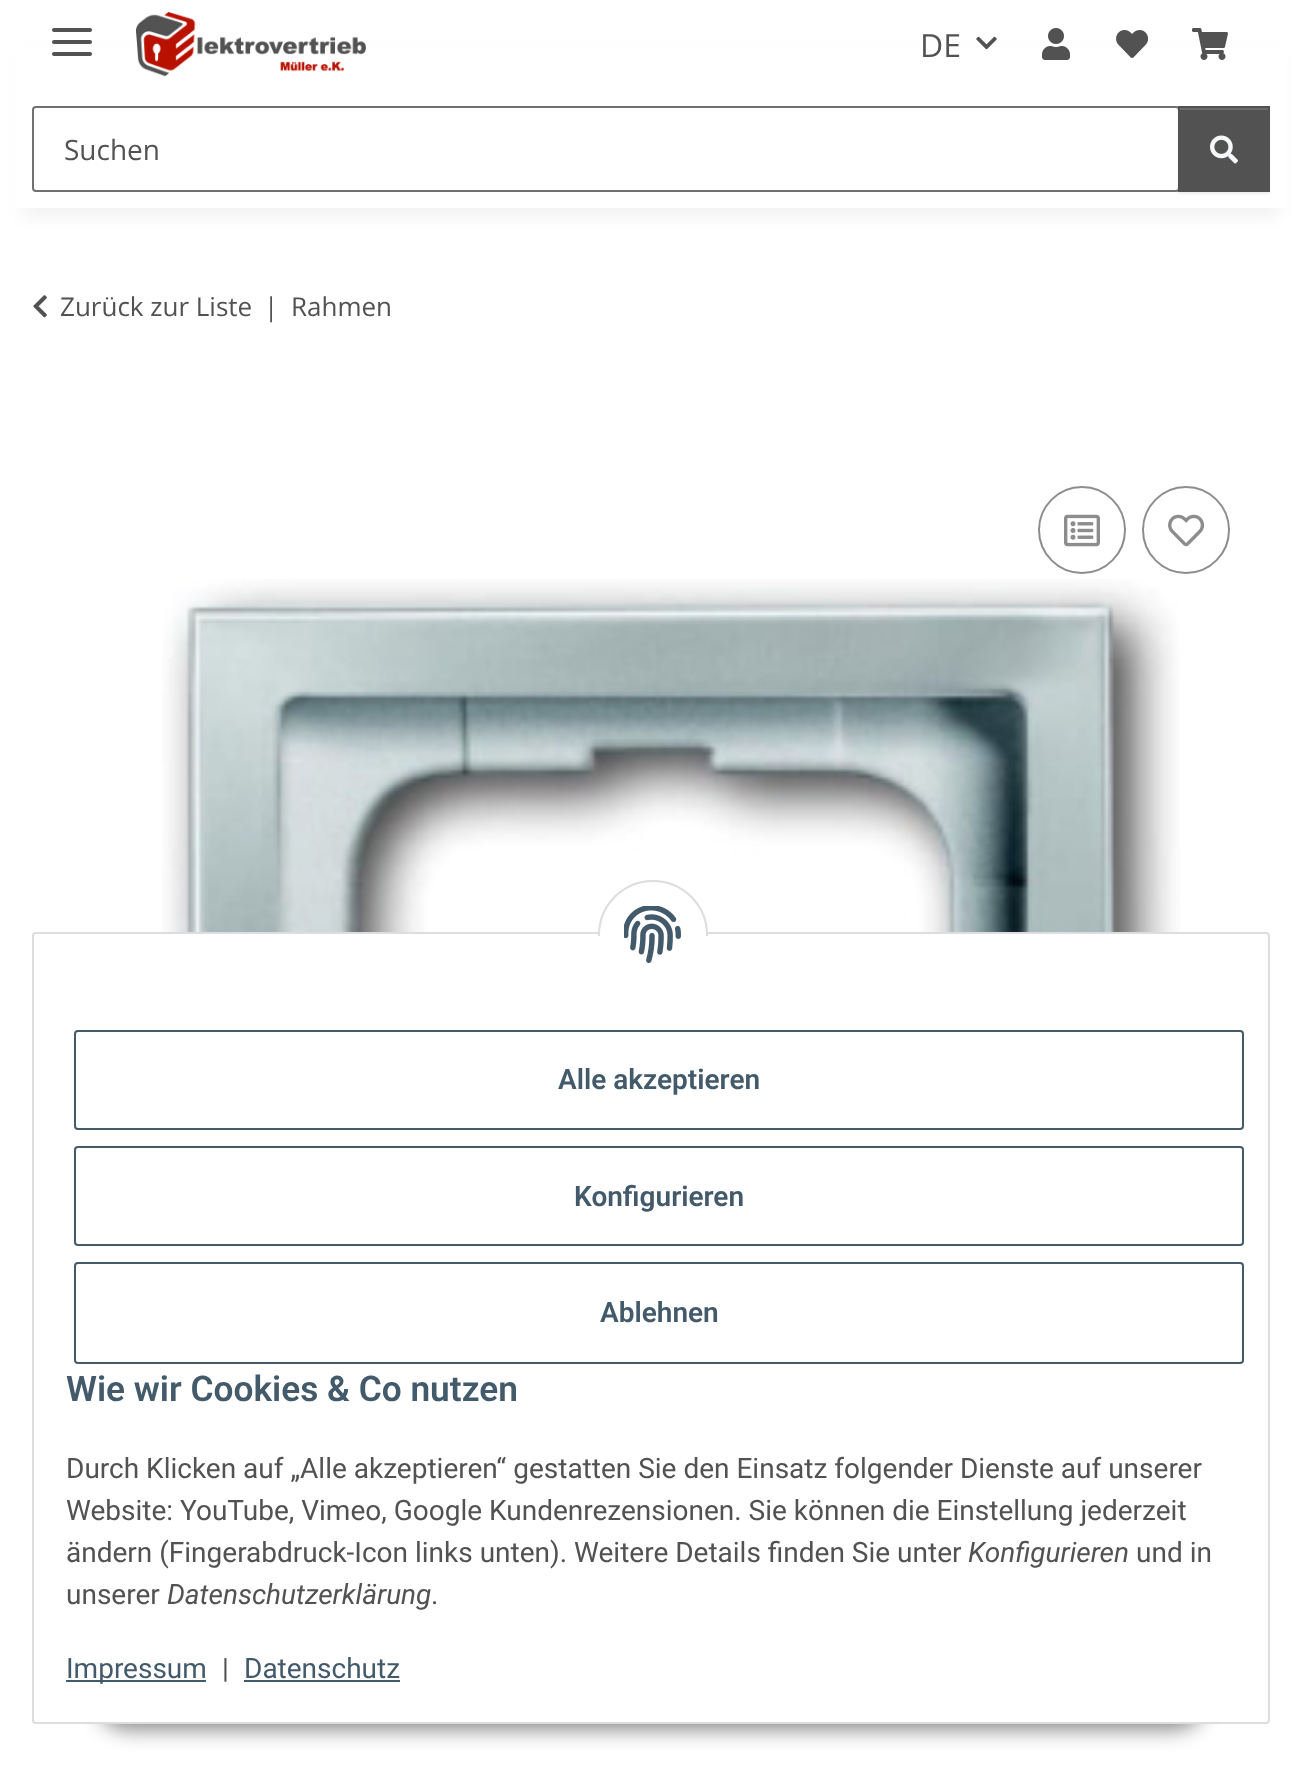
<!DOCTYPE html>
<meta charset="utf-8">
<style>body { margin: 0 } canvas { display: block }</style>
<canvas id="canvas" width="1302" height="1787"></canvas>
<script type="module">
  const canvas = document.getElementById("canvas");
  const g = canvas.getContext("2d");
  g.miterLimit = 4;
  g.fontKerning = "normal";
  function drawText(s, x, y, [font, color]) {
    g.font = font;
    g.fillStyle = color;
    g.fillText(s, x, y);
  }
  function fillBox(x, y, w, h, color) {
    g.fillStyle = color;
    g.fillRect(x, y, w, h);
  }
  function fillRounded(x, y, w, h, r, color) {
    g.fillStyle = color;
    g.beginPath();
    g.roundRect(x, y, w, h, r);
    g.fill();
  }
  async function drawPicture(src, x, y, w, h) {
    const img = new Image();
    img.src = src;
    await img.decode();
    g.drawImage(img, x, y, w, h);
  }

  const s1 = ["32px Open Sans", "#525252"];
  const s2 = ["28px Open Sans", "#525252"];
  const s3 = ["26px Open Sans", "#525252"];
  const s4 = ["600 28px Roboto", "#435A6B"];
  const s5 = ["600 35.25px Roboto", "#435A6B"];
  const s6 = ["28px Roboto", "#525252"];
  const s7 = ["italic 28px Roboto", "#525252"];
  const s8 = ["28px Roboto", "#435A6B"];

  fillBox(0, 0, 1302, 1787, "#FFFFFF");
  g.fillStyle = "rgba(0, 0, 0, 0.06)";
  g.filter = "blur(9px)";
  g.beginPath();
  g.rect(24, 56, 1254, 160);
  g.fill();
  g.filter = "none";
  fillBox(15, 47, 1272, 161, "#FFFFFF");
  fillRounded(52, 40, 40, 4, 2, "#525252");
  fillRounded(52, 28, 40, 4, 2, "#525252");
  fillRounded(52, 52, 40, 4, 2, "#525252");
  await drawPicture("pic1.png", 136, 12, 230, 65);
  drawText("DE", 920, 57, s1);
  await drawPicture("pic2.png", 976, 36, 21, 14);
  await drawPicture("pic3.png", 1042, 28, 28, 32);
  await drawPicture("pic4.png", 1116, 30, 33, 28);
  await drawPicture("pic5.png", 1192, 28, 36, 32);
  g.beginPath();
  g.roundRect(33, 107, 1146, 84, 3);
  g.strokeStyle = "#707070";
  g.lineWidth = 2;
  g.stroke();
  drawText("Suchen", 64, 160, s2);
  g.fillStyle = "rgba(0, 0, 0, 0.07)";
  g.filter = "blur(1px)";
  g.beginPath();
  g.rect(1178, 108, 92, 86);
  g.fill();
  g.filter = "none";
  fillBox(1178, 106, 92, 86, "#525252");
  fillBox(1180, 108, 88, 2, "#6C6C6C");
  await drawPicture("pic6.png", 1210, 135, 28, 29);
  await drawPicture("pic7.png", 33, 295, 14, 23);
  drawText("Zurück zur Liste", 60, 316, s3);
  drawText("|", 264, 316, s3);
  drawText("Rahmen", 291, 316, s3);
  g.beginPath();
  g.arc(1082, 530, 43, 0, Math.PI * 2);
  g.strokeStyle = "#8D8D8D";
  g.stroke();
  await drawPicture("pic8.png", 1064, 514, 36, 33);
  g.beginPath();
  g.arc(1186, 530, 43, 0, Math.PI * 2);
  g.stroke();
  await drawPicture("pic9.png", 1168, 514, 37, 33);
  await drawPicture("pic10.png", 162, 579, 1018, 353);
  g.fillStyle = "rgba(0, 0, 0, 0.45)";
  g.filter = "blur(10px)";
  g.beginPath();
  g.roundRect(96, 1666, 1110, 64, 32);
  g.fill();
  g.filter = "none";
  g.fillStyle = "#FFFFFF";
  g.beginPath();
  g.roundRect(33, 933, 1236, 790, 3);
  g.fill();
  g.strokeStyle = "#DDDDDD";
  g.stroke();
  g.beginPath();
  g.arc(653, 935, 54, 0, Math.PI * 2);
  g.fill();
  g.stroke();
  fillBox(598, 936, 110, 54, "#FFFFFF");
  await drawPicture("pic11.png", 624, 906, 57, 57);
  g.beginPath();
  g.roundRect(75, 1031, 1168, 98, 3);
  g.strokeStyle = "#435A6B";
  g.stroke();
  drawText("Alle akzeptieren", 558, 1089, s4);
  g.beginPath();
  g.roundRect(75, 1147, 1168, 98, 3);
  g.stroke();
  drawText("Konfigurieren", 574, 1206, s4);
  g.beginPath();
  g.roundRect(75, 1263, 1168, 100, 3);
  g.stroke();
  drawText("Ablehnen", 600, 1322, s4);
  drawText("Wie wir Cookies & Co nutzen", 66, 1401, s5);
  drawText("Durch Klicken auf „Alle akzeptieren“ gestatten Sie den Einsatz folgender Dienste auf unserer", 66, 1478, s6);
  drawText("Website: YouTube, Vimeo, Google Kundenrezensionen. Sie können die Einstellung jederzeit", 66, 1520, s6);
  drawText("ändern (Fingerabdruck-Icon links unten). Weitere Details finden Sie unter", 66, 1562, s6);
  drawText("Konfigurieren", 968, 1562, s7);
  drawText("und in", 1136, 1562, s6);
  drawText("unserer", 66, 1604, s6);
  drawText("Datenschutzerklärung", 167, 1604, s7);
  drawText(".", 431, 1604, s6);
  fillBox(66, 1680, 140, 2, "#435A6B");
  drawText("Impressum", 66, 1678, s8);
  drawText("|", 222, 1678, s6);
  drawText("Datenschutz", 244, 1678, s8);
  fillBox(244, 1680, 156, 2, "#435A6B");
</script>
